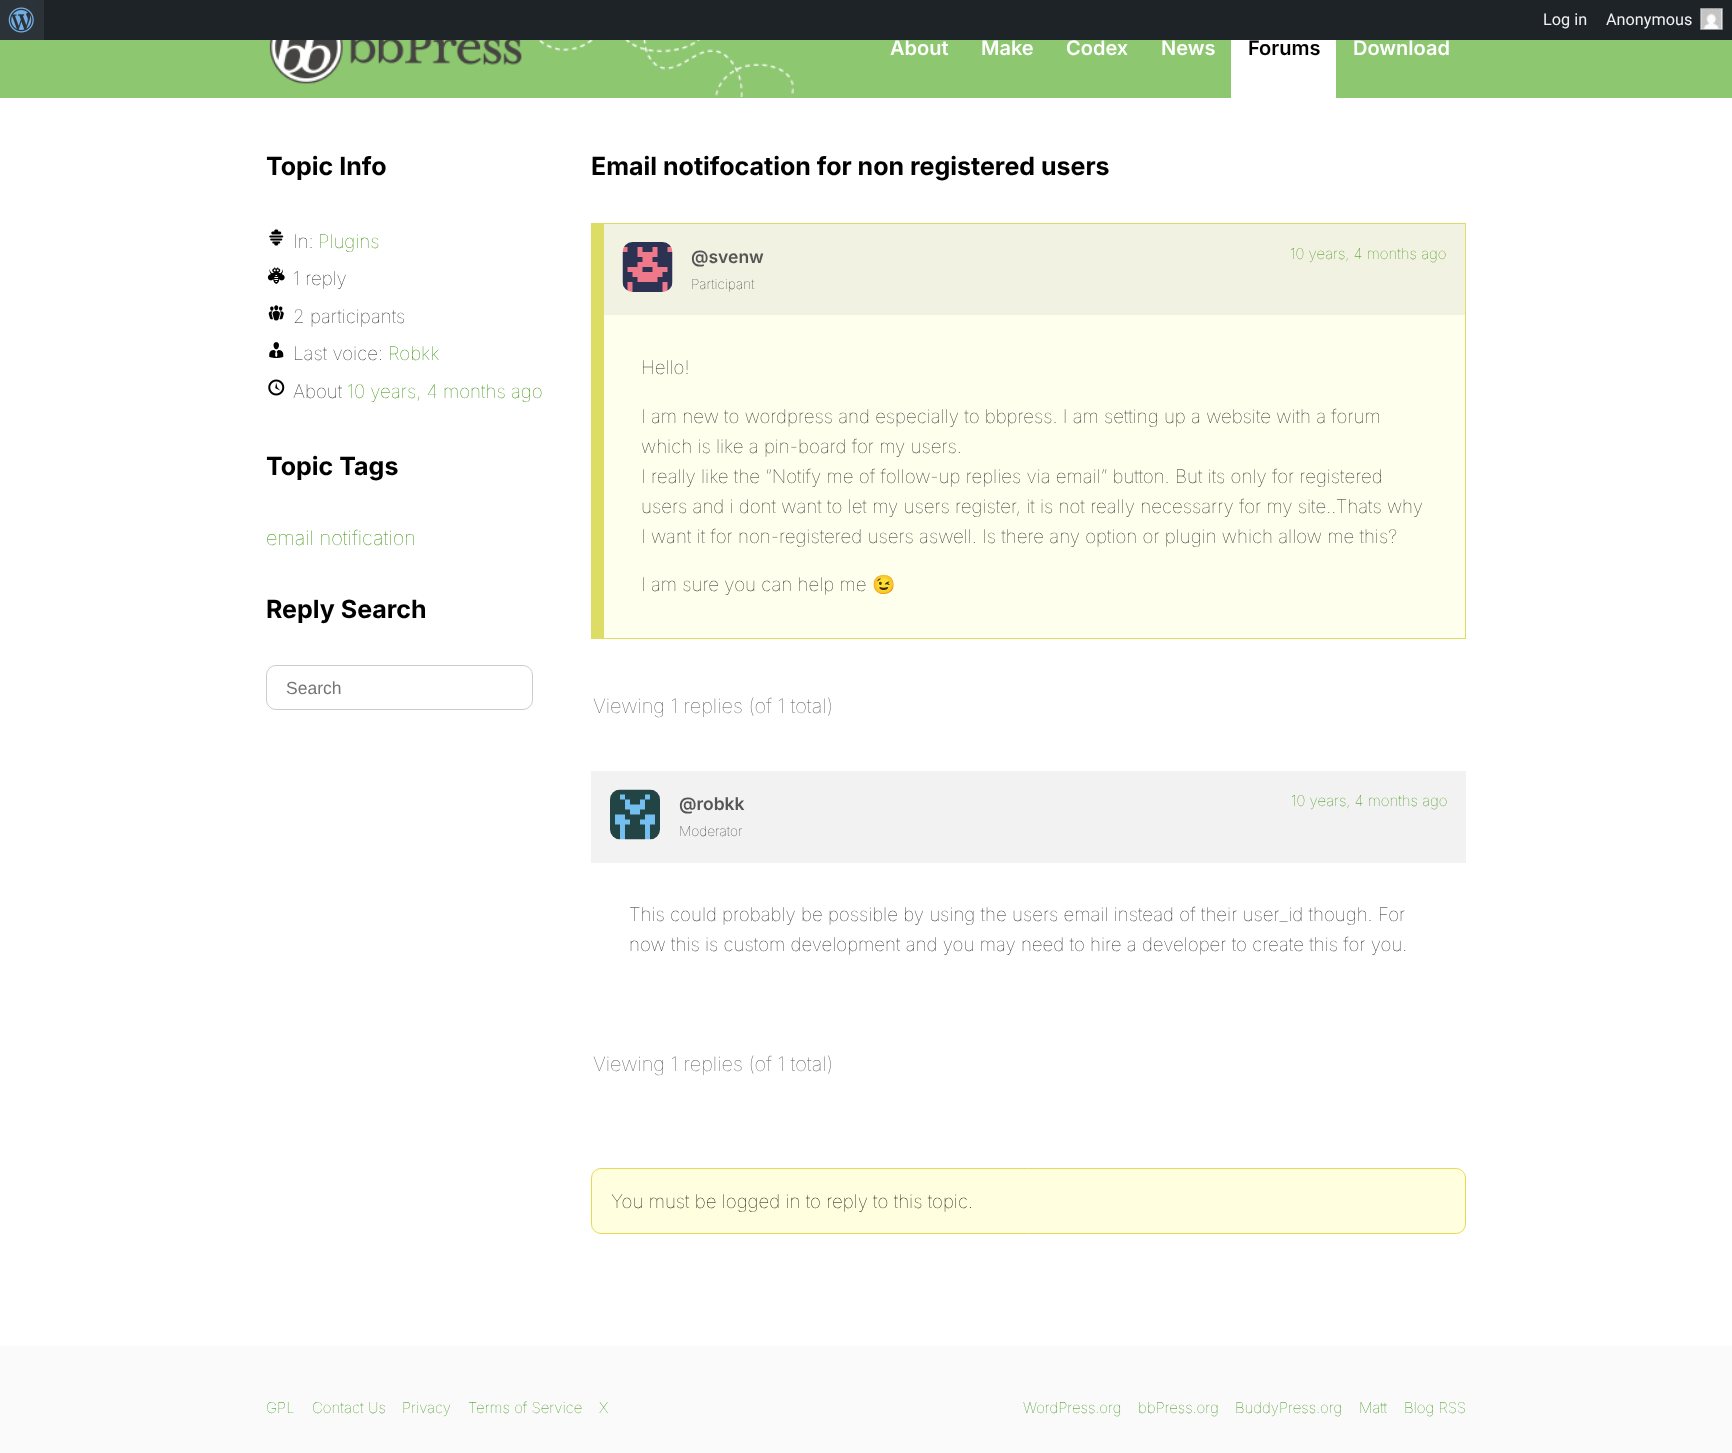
<!DOCTYPE html>
<meta charset="utf-8">
<style>body { margin: 0 } canvas { display: block }</style>
<canvas id="canvas" width="1732" height="1453"></canvas>
<script type="module">
  const canvas = document.getElementById("canvas");
  const g = canvas.getContext("2d");
  g.miterLimit = 4;
  g.fontKerning = "normal";
  function drawText(s, x, y, [font, color]) {
    g.font = font;
    g.fillStyle = color;
    g.fillText(s, x, y);
  }
  function fillBox(x, y, w, h, color) {
    g.fillStyle = color;
    g.fillRect(x, y, w, h);
  }
  async function drawPicture(src, x, y, w, h) {
    const img = new Image();
    img.src = src;
    await img.decode();
    g.drawImage(img, x, y, w, h);
  }

  const s1 = ["16.25px Roboto", "#F0F0F1"];
  const s2 = ["600 20px Inter", "#FFFFFF"];
  const s3 = ["600 20px Inter", "#000000"];
  const s4 = ["bold 25px Inter", "#000000"];
  const s5 = ["100 18.75px Inter", "#222222"];
  const s6 = ["100 18.75px Inter", "#328C00"];
  const s7 = ["100 20px Inter", "#328C00"];
  const s8 = ["17.5px Liberation Sans", "#757575"];
  const s9 = ["600 17.5px Inter", "#555555"];
  const s10 = ["100 13.75px Inter", "#222222"];
  const s11 = ["100 15px Inter", "#328C00"];
  const s12 = ["18.75px Noto Color Emoji", "#222222"];
  const s13 = ["100 20px Inter", "#555555"];
  const s14 = ["100 18.75px Inter", "#000000"];

  fillBox(0, 0, 1732, 1453, "#FFFFFF");
  fillBox(44, 0, 1688, 40, "#1D2327");
  fillBox(0, 0, 44, 40, "#2C3338");
  await drawPicture("pic1.png", 8, 7, 26, 26);
  drawText("Log in", 1543, 25, s1);
  g.beginPath();
  g.rect(1700.5, 8.5, 22, 21);
  g.fill();
  g.strokeStyle = "#8C8F94";
  g.stroke();
  drawText("Anonymous", 1606, 25, s1);
  await drawPicture("pic2.png", 1701, 8, 21, 21);
  fillBox(0, 40, 1732, 58, "#8DC770");
  await drawPicture("pic3.png", 538, 40, 256, 57);
  await drawPicture("pic4.png", 269, 40, 253, 44);
  drawText("About", 890, 55, s2);
  drawText("Make", 981, 55, s2);
  drawText("Codex", 1066, 55, s2);
  drawText("News", 1161, 55, s2);
  fillBox(1231, 40, 105, 58, "#FFFFFF");
  drawText("Forums", 1248, 55, s3);
  drawText("Download", 1353, 55, s2);
  drawText("Topic Info", 266, 175, s4);
  await drawPicture("pic5.png", 269, 229, 15, 17);
  drawText("In:", 293, 248, s5);
  drawText("Plugins", 318, 248, s6);
  await drawPicture("pic6.png", 267, 267, 18, 17);
  drawText("1 reply", 293, 285, s5);
  await drawPicture("pic7.png", 268, 305, 16, 16);
  drawText("2 participants", 293, 323, s5);
  await drawPicture("pic8.png", 269, 342, 15, 16);
  drawText("Last voice:", 293, 360, s5);
  drawText("Robkk", 388, 360, s6);
  await drawPicture("pic9.png", 268, 379, 17, 17);
  drawText("About", 293, 398, s5);
  drawText("10 years, 4 months ago", 347, 398, s6);
  drawText("Topic Tags", 266, 475, s4);
  drawText("email notification", 266, 545, s7);
  drawText("Reply Search", 266, 618, s4);
  g.beginPath();
  g.roundRect(266.5, 665.5, 266, 44, 9.5);
  g.strokeStyle = "#CCCCCC";
  g.stroke();
  drawText("Search", 286, 694, s8);
  drawText("Email notifocation for non registered users", 591, 175, s4);
  fillBox(604, 223, 862, 1, "#DDDD66");
  fillBox(1465, 223, 1, 416, "#DDDD66");
  fillBox(604, 638, 862, 1, "#DDDD66");
  fillBox(591, 223, 13, 416, "#DDDD66");
  fillBox(604, 315, 861, 323, "#FFFFEE");
  fillBox(604, 224, 861, 91, "#F2F2E2");
  await drawPicture("pic10.png", 622, 242, 51, 50);
  drawText("@svenw", 691, 263, s9);
  drawText("Participant", 691, 289, s10);
  drawText("10 years, 4 months ago", 1290, 259, s11);
  drawText("Hello!", 641, 374, s5);
  drawText("I am new to wordpress and especially to bbpress. I am setting up a website with a forum", 641, 423, s5);
  drawText("which is like a pin-board for my users.", 641, 453, s5);
  drawText("I really like the “Notify me of follow-up replies via email” button. But its only for registered", 641, 483, s5);
  drawText("users and i dont want to let my users register, it is not really necessarry for my site..Thats why", 641, 513, s5);
  drawText("I want it for non-registered users aswell. Is there any option or plugin which allow me this?", 641, 543, s5);
  drawText("I am sure you can help me", 641, 591, s5);
  drawText("😉", 872, 591, s12);
  drawText("Viewing 1 replies (of 1 total)", 593, 713, s13);
  fillBox(591, 771, 875, 92, "#F2F2F2");
  await drawPicture("pic11.png", 610, 789, 50, 51);
  drawText("@robkk", 679, 810, s9);
  drawText("Moderator", 679, 836, s10);
  drawText("10 years, 4 months ago", 1291, 806, s11);
  drawText("This could probably be possible by using the users email instead of their user_id though. For", 629, 921, s5);
  drawText("now this is custom development and you may need to hire a developer to create this for you.", 629, 951, s5);
  drawText("Viewing 1 replies (of 1 total)", 593, 1071, s13);
  g.fillStyle = "#FFFFE0";
  g.beginPath();
  g.roundRect(591.5, 1168.5, 874, 65, 9.5);
  g.fill();
  g.strokeStyle = "#E6DB55";
  g.stroke();
  drawText("You must be logged in to reply to this topic.", 611, 1208, s14);
  fillBox(0, 1346, 1732, 107, "#FAFAFA");
  drawText("GPL", 266, 1413, s11);
  drawText("Contact Us", 312, 1413, s11);
  drawText("Privacy", 402, 1413, s11);
  drawText("Terms of Service", 468, 1413, s11);
  drawText("X", 599, 1413, s11);
  drawText("WordPress.org", 1023, 1413, s11);
  drawText("bbPress.org", 1138, 1413, s11);
  drawText("BuddyPress.org", 1235, 1413, s11);
  drawText("Matt", 1359, 1413, s11);
  drawText("Blog RSS", 1404, 1413, s11);
</script>
